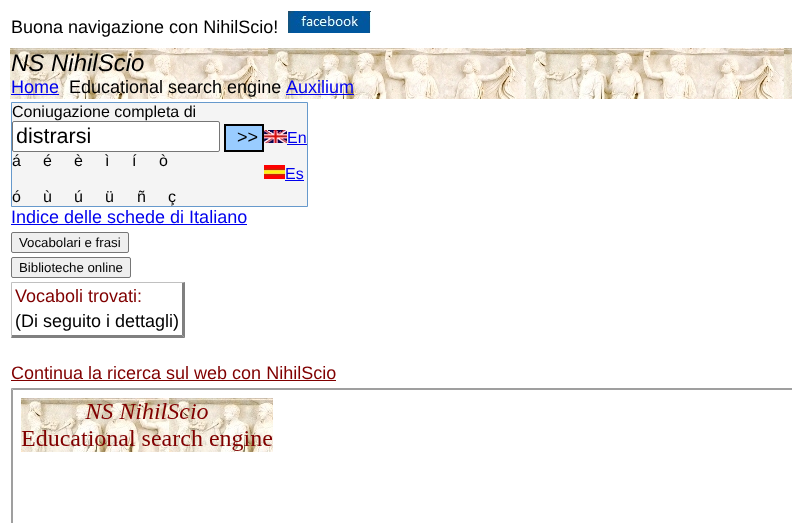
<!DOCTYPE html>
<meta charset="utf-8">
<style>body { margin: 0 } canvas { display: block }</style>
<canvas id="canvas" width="792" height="523"></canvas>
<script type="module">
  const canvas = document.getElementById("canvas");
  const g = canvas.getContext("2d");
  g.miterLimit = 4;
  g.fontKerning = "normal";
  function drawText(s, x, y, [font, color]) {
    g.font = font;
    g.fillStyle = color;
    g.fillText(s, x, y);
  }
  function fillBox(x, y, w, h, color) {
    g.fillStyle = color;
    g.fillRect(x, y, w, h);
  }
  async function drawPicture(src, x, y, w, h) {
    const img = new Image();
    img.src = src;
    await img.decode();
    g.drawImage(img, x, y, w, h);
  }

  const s1 = ["18px Liberation Sans", "#000000"];
  const s2 = ["italic 24px Liberation Sans", "#000000"];
  const s3 = ["18px Liberation Sans", "#0000EE"];
  const s4 = ["16px Liberation Sans", "#000000"];
  const s5 = ["21.5px Liberation Sans", "#000000"];
  const s6 = ["16px Liberation Sans", "#0000EE"];
  const s7 = ["13.25px Liberation Sans", "#000000"];
  const s8 = ["18px Liberation Sans", "#800000"];

  fillBox(0, 0, 792, 523, "#FFFFFF");
  drawText("Buona navigazione con NihilScio!", 11, 33, s1);
  await drawPicture("pic1.png", 288, 11, 83, 22);
  await drawPicture("pic2.png", 10, 48, 782, 51);
  drawText("NS NihilScio", 11, 71, s2);
  drawText("Home", 11, 93, s3);
  fillBox(11, 94, 48, 1, "#0000EE");
  drawText("Educational search engine", 69, 93, s1);
  drawText("Auxilium", 286, 93, s3);
  fillBox(286, 94, 68, 1, "#0000EE");
  g.fillStyle = "#F4F4F4";
  g.beginPath();
  g.rect(11.5, 102.5, 296, 104);
  g.fill();
  g.strokeStyle = "#6699CC";
  g.stroke();
  drawText("Coniugazione completa di", 12, 117, s4);
  g.fillStyle = "#FFFFFF";
  g.beginPath();
  g.roundRect(12.5, 121.5, 207, 30, 1.5);
  g.fill();
  g.strokeStyle = "#767676";
  g.stroke();
  drawText("distrarsi", 16, 143, s5);
  g.fillStyle = "#99CCFF";
  g.beginPath();
  g.rect(225, 125, 38, 26);
  g.fill();
  g.strokeStyle = "#000000";
  g.lineWidth = 2;
  g.stroke();
  drawText(">>", 237, 143, s1);
  drawText("á", 12, 166, s4);
  drawText("é", 43, 166, s4);
  drawText("è", 74, 166, s4);
  drawText("ì", 105, 166, s4);
  drawText("í", 132, 166, s4);
  drawText("ò", 159, 166, s4);
  drawText("ó", 12, 202, s4);
  drawText("ù", 43, 202, s4);
  drawText("ú", 74, 202, s4);
  drawText("ü", 105, 202, s4);
  drawText("ñ", 137, 202, s4);
  drawText("ç", 168, 202, s4);
  await drawPicture("pic3.png", 264, 130, 23, 13);
  drawText("En", 287, 143, s6);
  fillBox(287, 144, 20, 1, "#0000EE");
  await drawPicture("pic4.png", 264, 165, 21, 14);
  drawText("Es", 285, 179, s6);
  fillBox(285, 180, 19, 1, "#0000EE");
  drawText("Indice delle schede di Italiano", 11, 223, s3);
  fillBox(11, 224, 236, 1, "#0000EE");
  g.fillStyle = "#EFEFEF";
  g.beginPath();
  g.roundRect(11.5, 232.5, 117, 20, 1.5);
  g.fill();
  g.strokeStyle = "#767676";
  g.lineWidth = 1;
  g.stroke();
  drawText("Vocabolari e frasi", 19, 247, s7);
  g.fillStyle = "#EFEFEF";
  g.beginPath();
  g.roundRect(11.5, 257.5, 119, 20, 1.5);
  g.fill();
  g.stroke();
  drawText("Biblioteche online", 19, 272, s7);
  g.fillStyle = "#C0C0C0";
  g.beginPath();
  g.moveTo(11, 282);
  g.lineTo(185, 282);
  g.lineTo(182, 283);
  g.lineTo(12, 283);
  g.closePath();
  g.fill();
  g.fillStyle = "#808080";
  g.beginPath();
  g.moveTo(185, 282);
  g.lineTo(185, 338);
  g.lineTo(182, 335);
  g.lineTo(182, 283);
  g.closePath();
  g.fill();
  g.beginPath();
  g.moveTo(185, 338);
  g.lineTo(11, 338);
  g.lineTo(12, 335);
  g.lineTo(182, 335);
  g.closePath();
  g.fill();
  g.fillStyle = "#C0C0C0";
  g.beginPath();
  g.moveTo(11, 338);
  g.lineTo(11, 282);
  g.lineTo(12, 283);
  g.lineTo(12, 335);
  g.closePath();
  g.fill();
  drawText("Vocaboli trovati:", 15, 302, s8);
  drawText("(Di seguito i dettagli)", 15, 327, s1);
  drawText("Continua la ricerca sul web con NihilScio", 11, 379, s8);
  fillBox(11, 380, 325, 1, "#800000");
  g.fillStyle = "#9F9F9F";
  g.beginPath();
  g.moveTo(11, 388);
  g.lineTo(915, 388);
  g.lineTo(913, 390);
  g.lineTo(13, 390);
  g.closePath();
  g.fill();
  g.beginPath();
  g.moveTo(11, 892);
  g.lineTo(11, 388);
  g.lineTo(13, 390);
  g.lineTo(13, 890);
  g.closePath();
  g.fill();
  await drawPicture("pic5.png", 21, 398, 252, 54);
</script>
